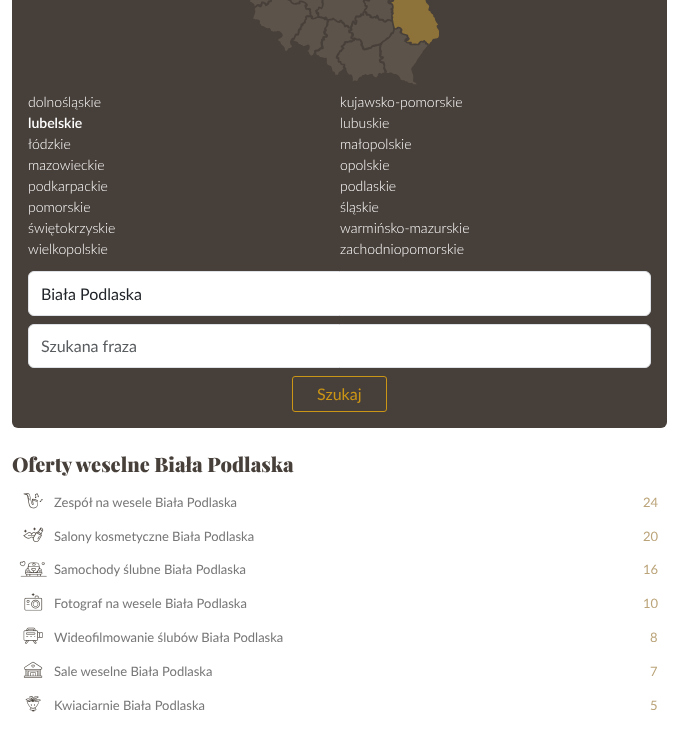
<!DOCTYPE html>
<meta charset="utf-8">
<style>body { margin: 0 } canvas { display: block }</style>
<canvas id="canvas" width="679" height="730"></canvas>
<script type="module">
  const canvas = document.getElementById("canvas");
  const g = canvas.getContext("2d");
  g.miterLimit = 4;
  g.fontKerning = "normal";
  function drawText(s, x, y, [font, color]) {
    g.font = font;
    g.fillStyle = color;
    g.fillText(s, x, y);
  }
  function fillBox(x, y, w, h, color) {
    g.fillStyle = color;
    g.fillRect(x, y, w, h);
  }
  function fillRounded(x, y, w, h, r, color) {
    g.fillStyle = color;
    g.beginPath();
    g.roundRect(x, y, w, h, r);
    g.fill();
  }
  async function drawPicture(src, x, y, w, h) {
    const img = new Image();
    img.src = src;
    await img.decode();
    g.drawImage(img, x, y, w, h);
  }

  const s1 = ["300 14px Lato", "#FFFFFF"];
  const s2 = ["600 14px Lato", "#FFFFFF"];
  const s3 = ["16px Lato", "#212529"];
  const s4 = ["16px Lato", "#595C5F"];
  const s5 = ["16px Lato", "#CB9515"];
  const s6 = ["900 20px Playfair Display", "#473F39"];
  const s7 = ["13px Lato", "#777777"];
  const s8 = ["13px Lato", "#BBA479"];

  fillBox(0, 0, 679, 730, "#FFFFFF");
  fillRounded(12, -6, 655, 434, 6, "#473F39");
  await drawPicture("pic1.png", 250, 0, 189, 85);
  drawText("dolnośląskie", 28, 107, s1);
  drawText("kujawsko-pomorskie", 340, 107, s1);
  drawText("lubelskie", 28, 128, s2);
  drawText("lubuskie", 340, 128, s1);
  drawText("łódzkie", 28, 149, s1);
  drawText("małopolskie", 340, 149, s1);
  drawText("mazowieckie", 28, 170, s1);
  drawText("opolskie", 340, 170, s1);
  drawText("podkarpackie", 28, 191, s1);
  drawText("podlaskie", 340, 191, s1);
  drawText("pomorskie", 28, 212, s1);
  drawText("śląskie", 340, 212, s1);
  drawText("świętokrzyskie", 28, 233, s1);
  drawText("warmińsko-mazurskie", 340, 233, s1);
  drawText("wielkopolskie", 28, 254, s1);
  drawText("zachodniopomorskie", 340, 254, s1);
  g.beginPath();
  g.roundRect(28.5, 271.5, 622, 44, 5.5);
  g.fill();
  g.strokeStyle = "#DEE2E6";
  g.stroke();
  drawText("Biała Podlaska", 41, 300, s3);
  g.fillStyle = "#FFFFFF";
  g.beginPath();
  g.roundRect(28.5, 324.5, 622, 43, 5.5);
  g.fill();
  g.stroke();
  drawText("Szukana fraza", 41, 352, s4);
  g.beginPath();
  g.roundRect(292.5, 376.5, 94, 35, 2.5);
  g.strokeStyle = "#CB9515";
  g.stroke();
  drawText("Szukaj", 317, 400, s5);
  drawText("Oferty weselne Biała Podlaska", 12, 472, s6);
  await drawPicture("pic2.png", 23, 493, 20, 16);
  drawText("Zespół na wesele Biała Podlaska", 54, 507, s7);
  drawText("24", 643, 507, s8);
  await drawPicture("pic3.png", 23, 527, 21, 15);
  drawText("Salony kosmetyczne Biała Podlaska", 54, 541, s7);
  drawText("20", 643, 541, s8);
  await drawPicture("pic4.png", 19, 561, 28, 16);
  drawText("Samochody ślubne Biała Podlaska", 54, 574, s7);
  drawText("16", 643, 574, s8);
  await drawPicture("pic5.png", 24, 593, 19, 18);
  drawText("Fotograf na wesele Biała Podlaska", 54, 608, s7);
  drawText("10", 643, 608, s8);
  await drawPicture("pic6.png", 23, 627, 20, 17);
  drawText("Wideofilmowanie ślubów Biała Podlaska", 54, 642, s7);
  drawText("8", 650, 642, s8);
  await drawPicture("pic7.png", 23, 661, 20, 17);
  drawText("Sale weselne Biała Podlaska", 54, 676, s7);
  drawText("7", 650, 676, s8);
  await drawPicture("pic8.png", 25, 696, 16, 16);
  drawText("Kwiaciarnie Biała Podlaska", 54, 710, s7);
  drawText("5", 650, 710, s8);
</script>
